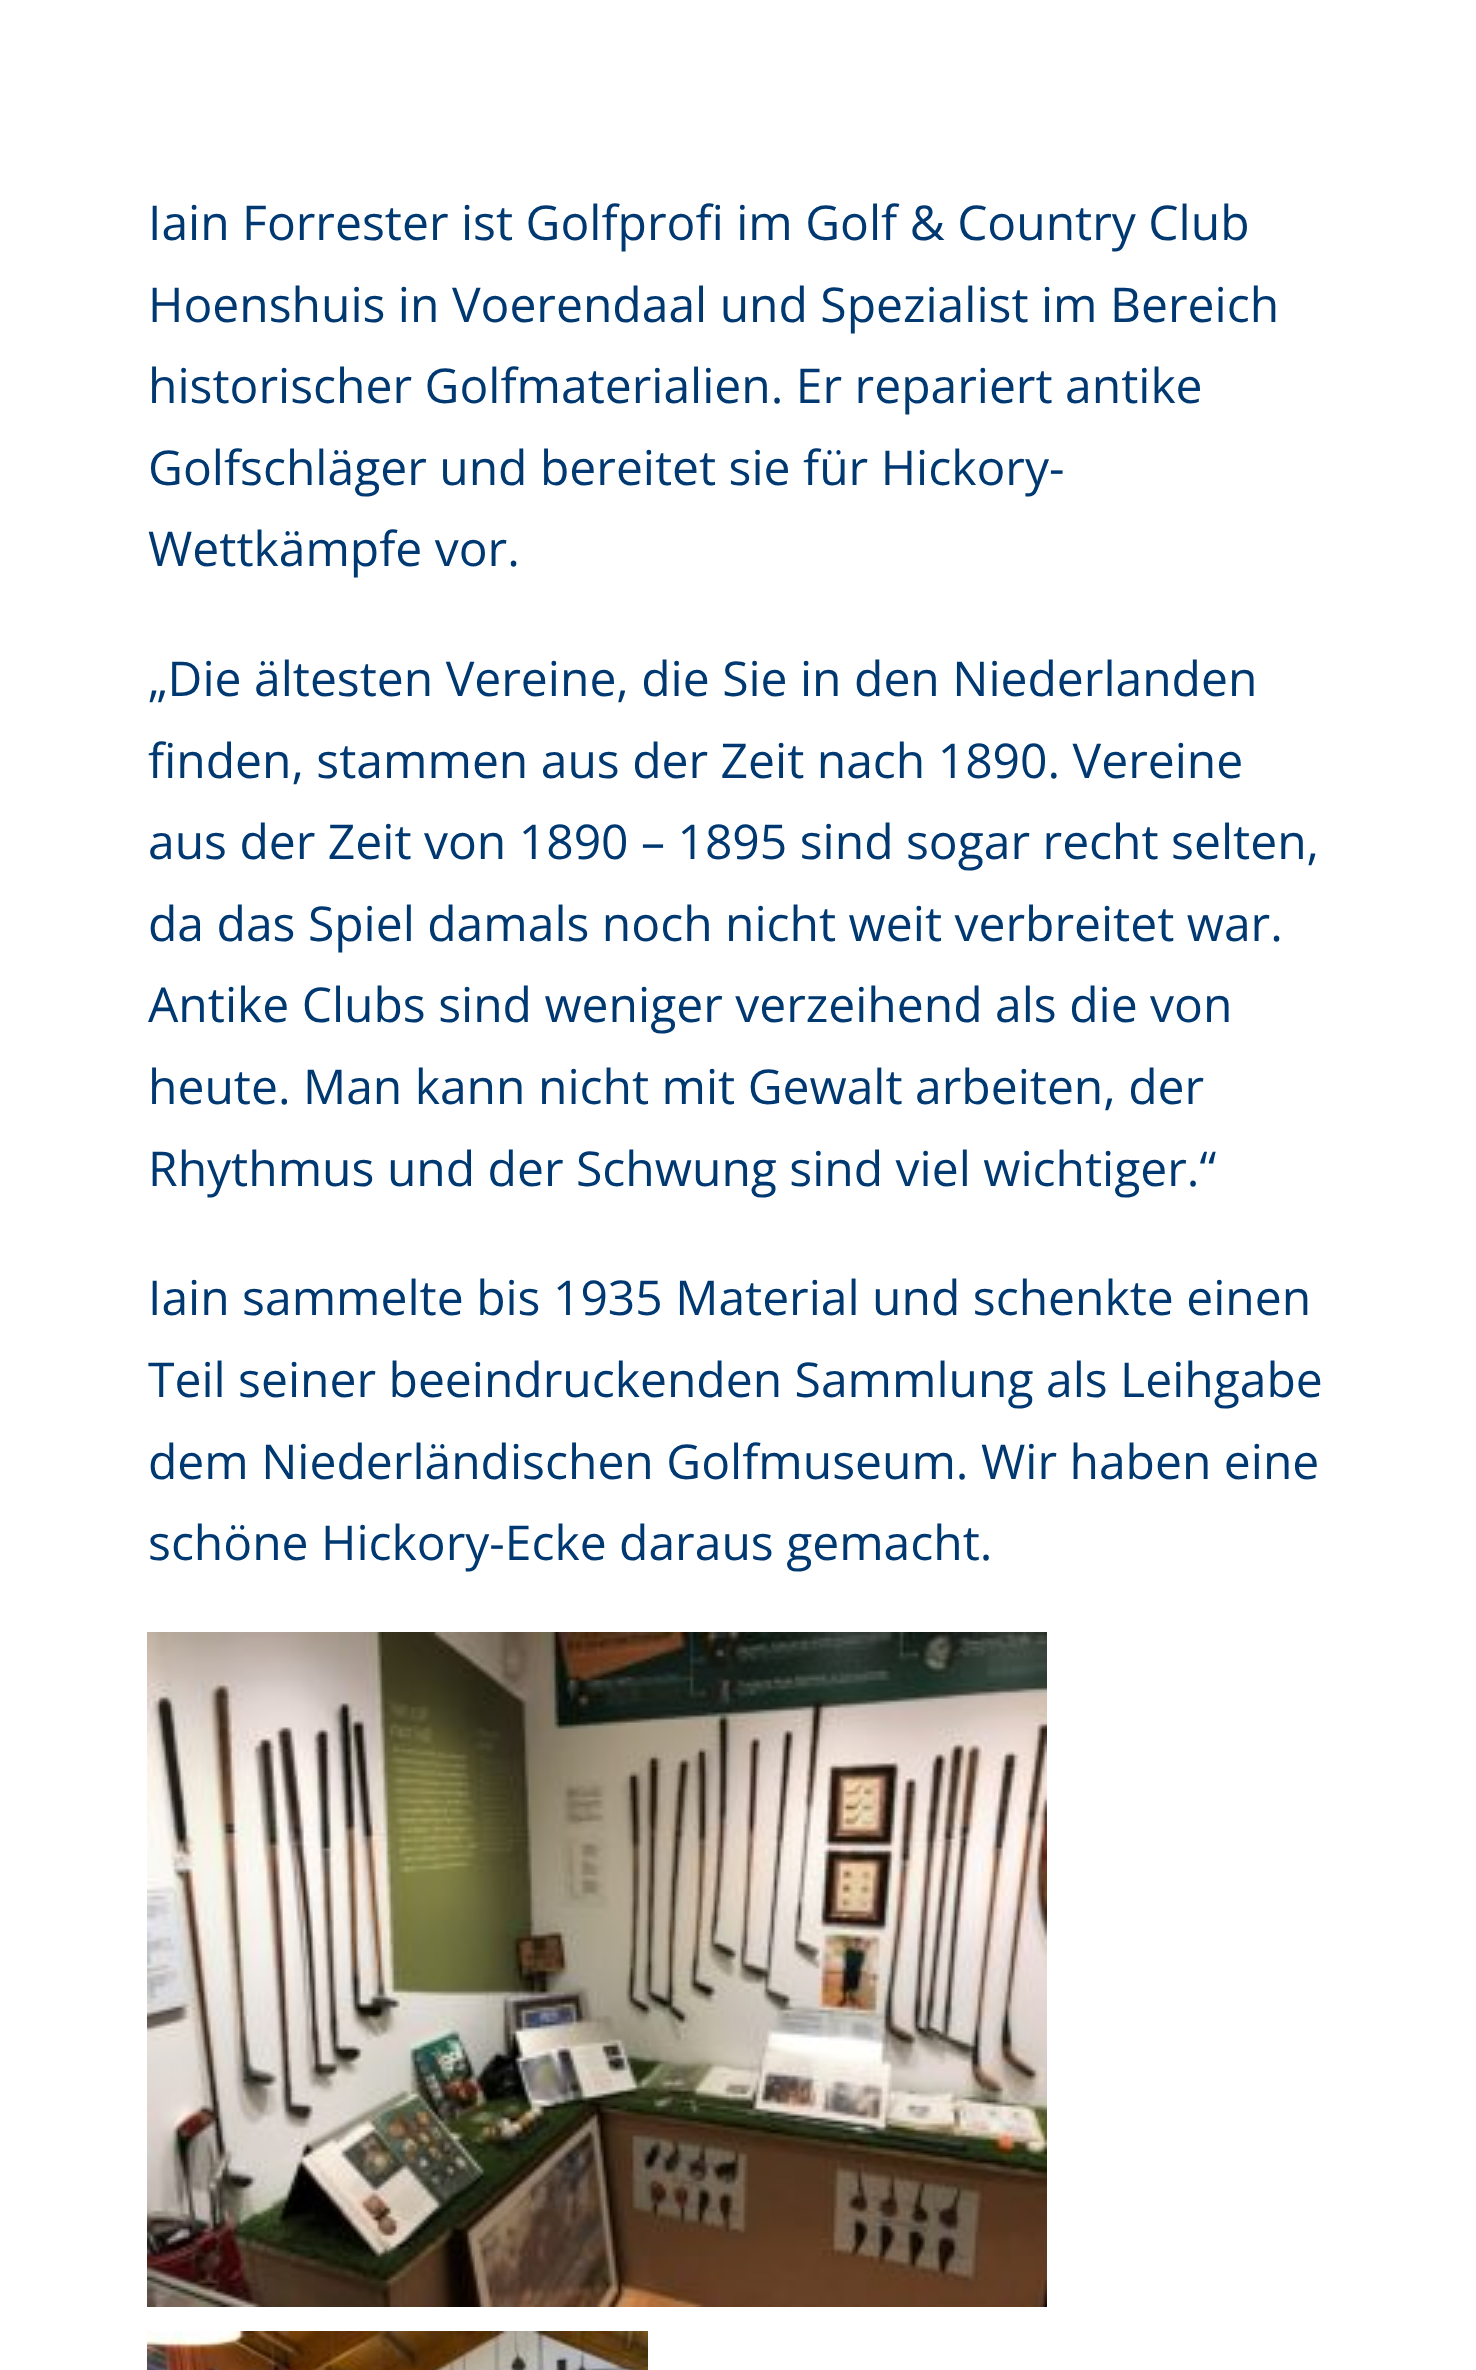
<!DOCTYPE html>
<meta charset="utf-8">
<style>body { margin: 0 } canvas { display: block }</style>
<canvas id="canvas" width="1476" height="2370"></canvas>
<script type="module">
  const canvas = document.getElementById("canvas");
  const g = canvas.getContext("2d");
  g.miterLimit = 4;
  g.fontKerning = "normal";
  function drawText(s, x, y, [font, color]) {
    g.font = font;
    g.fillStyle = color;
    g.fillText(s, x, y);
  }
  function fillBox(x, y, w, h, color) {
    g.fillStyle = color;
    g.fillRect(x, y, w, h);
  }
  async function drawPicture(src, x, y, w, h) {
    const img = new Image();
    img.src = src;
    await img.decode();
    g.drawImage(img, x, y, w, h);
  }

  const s1 = ["48px Open Sans", "#003972"];

  fillBox(0, 0, 1476, 2370, "#FFFFFF");
  drawText("Iain Forrester ist Golfprofi im Golf & Country Club", 148, 240, s1);
  drawText("Hoenshuis in Voerendaal und Spezialist im Bereich", 148, 322, s1);
  drawText("historischer Golfmaterialien. Er repariert antike", 148, 403, s1);
  drawText("Golfschläger und bereitet sie für Hickory-", 148, 485, s1);
  drawText("Wettkämpfe vor.", 148, 566, s1);
  drawText("„Die ältesten Vereine, die Sie in den Niederlanden", 148, 696, s1);
  drawText("finden, stammen aus der Zeit nach 1890. Vereine", 148, 778, s1);
  drawText("aus der Zeit von 1890 – 1895 sind sogar recht selten,", 148, 859, s1);
  drawText("da das Spiel damals noch nicht weit verbreitet war.", 148, 941, s1);
  drawText("Antike Clubs sind weniger verzeihend als die von", 148, 1022, s1);
  drawText("heute. Man kann nicht mit Gewalt arbeiten, der", 148, 1104, s1);
  drawText("Rhythmus und der Schwung sind viel wichtiger.“", 148, 1186, s1);
  drawText("Iain sammelte bis 1935 Material und schenkte einen", 148, 1315, s1);
  drawText("Teil seiner beeindruckenden Sammlung als Leihgabe", 148, 1397, s1);
  drawText("dem Niederländischen Golfmuseum. Wir haben eine", 148, 1479, s1);
  drawText("schöne Hickory-Ecke daraus gemacht.", 148, 1560, s1);
  await drawPicture("pic1.png", 147, 1632, 900, 675);
  await drawPicture("pic2.png", 147, 2331, 501, 39);
</script>
